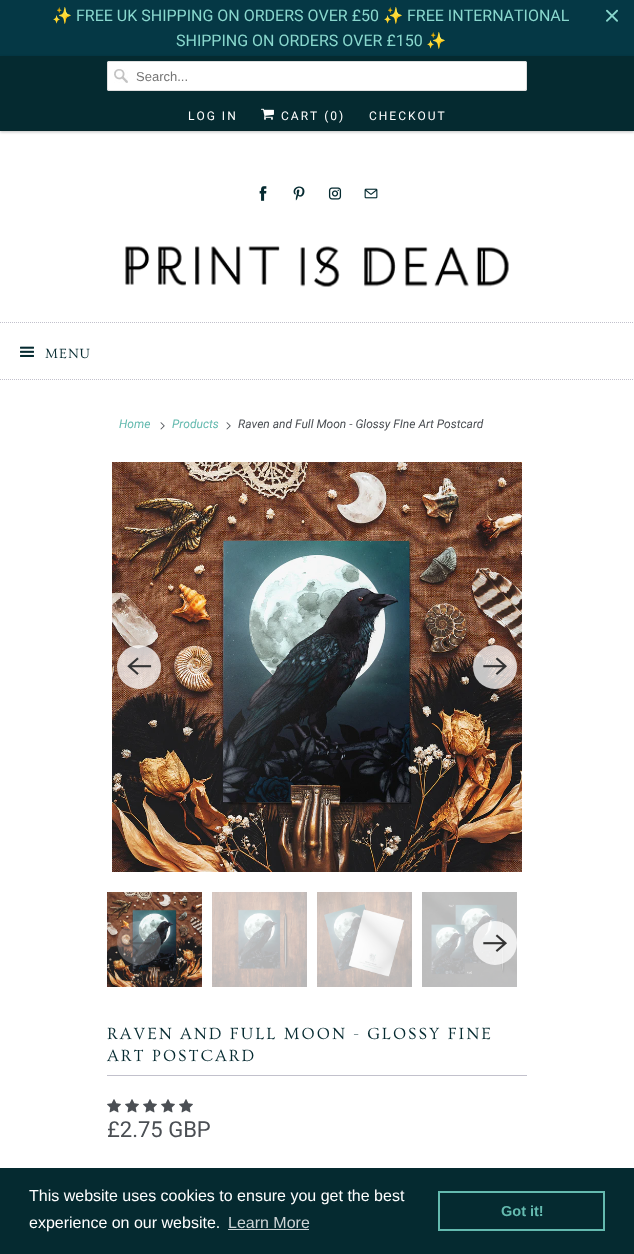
<!DOCTYPE html>
<meta charset="utf-8">
<style>body { margin: 0 } canvas { display: block }</style>
<canvas id="canvas" width="634" height="1254"></canvas>
<script type="module">
  const canvas = document.getElementById("canvas");
  const g = canvas.getContext("2d");
  g.miterLimit = 4;
  g.fontKerning = "none";
  function drawText(s, x, y, [font, color]) {
    g.font = font;
    g.fillStyle = color;
    g.fillText(s, x, y);
  }
  function fillBox(x, y, w, h, color) {
    g.fillStyle = color;
    g.fillRect(x, y, w, h);
  }
  function fillRounded(x, y, w, h, r, color) {
    g.fillStyle = color;
    g.beginPath();
    g.roundRect(x, y, w, h, r);
    g.fill();
  }
  async function drawPicture(src, x, y, w, h) {
    const img = new Image();
    img.src = src;
    await img.decode();
    g.drawImage(img, x, y, w, h);
  }

  const s1 = ["16px Noto Color Emoji", "#89D7CD"];
  const s2 = ["16px Roboto", "#89D7CD"];
  const s3 = ["13px Liberation Sans", "#757575"];
  const s4 = ["12px Roboto", "#FFFFFF"];
  const s5 = ["14px Ovo", "#052A30"];
  const s6 = ["italic 12px Roboto", "#64BAAF"];
  const s7 = ["italic 12px Roboto", "#4B4F54"];
  const s8 = ["17px Ovo", "#052A30"];
  const s9 = ["22px Roboto", "#4B4F54"];
  const s10 = ["16px Liberation Sans", "#FFFFFF"];
  const s11 = ["16px Liberation Sans", "#CDD4D6"];
  const s12 = ["bold 14.5px Liberation Sans", "#64BAAF"];

  fillBox(0, 0, 634, 1254, "#FFFFFF");
  fillBox(0, 0, 634, 56, "#053845");
  drawText("✨", 52, 21, s1);
  drawText("FREE UK SHIPPING ON ORDERS OVER £50", 76, 21, s2);
  drawText("✨", 383, 21, s1);
  drawText("FREE INTERNATIONAL", 407, 21, s2);
  drawText("SHIPPING ON ORDERS OVER £150", 176, 46, s2);
  drawText("✨", 426, 46, s1);
  await drawPicture("pic1.png", 606, 9, 12, 13);
  g.fillStyle = "rgba(0, 0, 0, 0.25)";
  g.filter = "blur(1.5px)";
  g.beginPath();
  g.rect(0, 57, 634, 75);
  g.fill();
  g.filter = "none";
  fillBox(0, 56, 634, 74, "#052A30");
  fillBox(0, 130, 634, 1, "#05262B");
  fillRounded(107, 61, 420, 30, 2, "#FFFFFF");
  await drawPicture("pic2.png", 114, 69, 14, 14);
  g.beginPath();
  g.roundRect(107.5, 61.5, 419, 29, 1.5);
  g.strokeStyle = "#DFDFDF";
  g.stroke();
  drawText("Search...", 136, 81, s3);
  g.letterSpacing = "2px";
  drawText("LOG IN", 188, 120, s4);
  await drawPicture("pic3.png", 261, 108, 13, 12);
  drawText("CART (0)", 281, 120, s4);
  drawText("CHECKOUT", 369, 120, s4);
  await drawPicture("pic4.png", 259, 186, 8, 15);
  await drawPicture("pic5.png", 293, 186, 12, 15);
  await drawPicture("pic6.png", 328, 187, 14, 13);
  await drawPicture("pic7.png", 364, 188, 14, 11);
  await drawPicture("pic8.png", 125, 246, 384, 41);
  g.beginPath();
  g.moveTo(0, 322.5);
  g.lineTo(634, 322.5);
  g.strokeStyle = "#C2C1CC";
  g.setLineDash([1, 1]);
  g.stroke();
  g.beginPath();
  g.moveTo(0, 379.5);
  g.lineTo(634, 379.5);
  g.stroke();
  await drawPicture("pic9.png", 20, 346, 14, 11);
  g.letterSpacing = "1px";
  drawText("MENU", 45, 358, s5);
  g.letterSpacing = "0px";
  drawText("Home", 119, 428, s6);
  await drawPicture("pic10.png", 160, 422, 5, 8);
  drawText("Products", 172, 428, s6);
  await drawPicture("pic10.png", 226, 422, 5, 8);
  drawText("Raven and Full Moon - Glossy FIne Art Postcard", 238, 428, s7);
  await drawPicture("pic11.png", 112, 462, 410, 410);
  g.fillStyle = "rgba(255, 255, 255, 0.75)";
  g.beginPath();
  g.arc(139, 667, 22, 0, Math.PI * 2);
  g.fill();
  await drawPicture("pic12.png", 127, 657, 25, 18);
  g.beginPath();
  g.arc(495, 667, 22, 0, Math.PI * 2);
  g.fill();
  await drawPicture("pic13.png", 483, 657, 24, 18);
  await drawPicture("pic14.png", 107, 892, 95, 95);
  await drawPicture("pic15.png", 212, 892, 95, 95);
  await drawPicture("pic16.png", 317, 892, 95, 95);
  await drawPicture("pic17.png", 422, 892, 95, 95);
  g.fillStyle = "rgba(255, 255, 255, 0.22)";
  g.beginPath();
  g.arc(139, 943, 22, 0, Math.PI * 2);
  g.fill();
  await drawPicture("pic18.png", 127, 934, 24, 18);
  g.fillStyle = "rgba(255, 255, 255, 0.75)";
  g.beginPath();
  g.arc(495, 943, 22, 0, Math.PI * 2);
  g.fill();
  await drawPicture("pic19.png", 483, 934, 24, 18);
  fillBox(107, 1075, 420, 1, "#C2C1CC");
  g.letterSpacing = "2px";
  drawText("RAVEN AND FULL MOON - GLOSSY FINE", 107, 1039, s8);
  drawText("ART POSTCARD", 107, 1061, s8);
  await drawPicture("pic20.png", 107, 1099, 14, 14);
  await drawPicture("pic20.png", 125, 1099, 14, 14);
  await drawPicture("pic20.png", 143, 1099, 14, 14);
  await drawPicture("pic20.png", 161, 1099, 14, 14);
  await drawPicture("pic20.png", 179, 1099, 14, 14);
  g.letterSpacing = "0px";
  drawText("£2.75 GBP", 107, 1137, s9);
  fillBox(0, 1168, 634, 86, "#052A30");
  drawText("This website uses cookies to ensure you get the best", 29, 1201, s10);
  drawText("experience on our website.", 29, 1228, s10);
  drawText("Learn More", 228, 1228, s11);
  fillBox(228, 1229, 81, 1, "#CDD4D6");
  g.strokeStyle = "#64BAAF";
  g.lineWidth = 2;
  g.setLineDash([]);
  g.strokeRect(439, 1192, 165, 38);
  drawText("Got it!", 501, 1216, s12);
</script>
